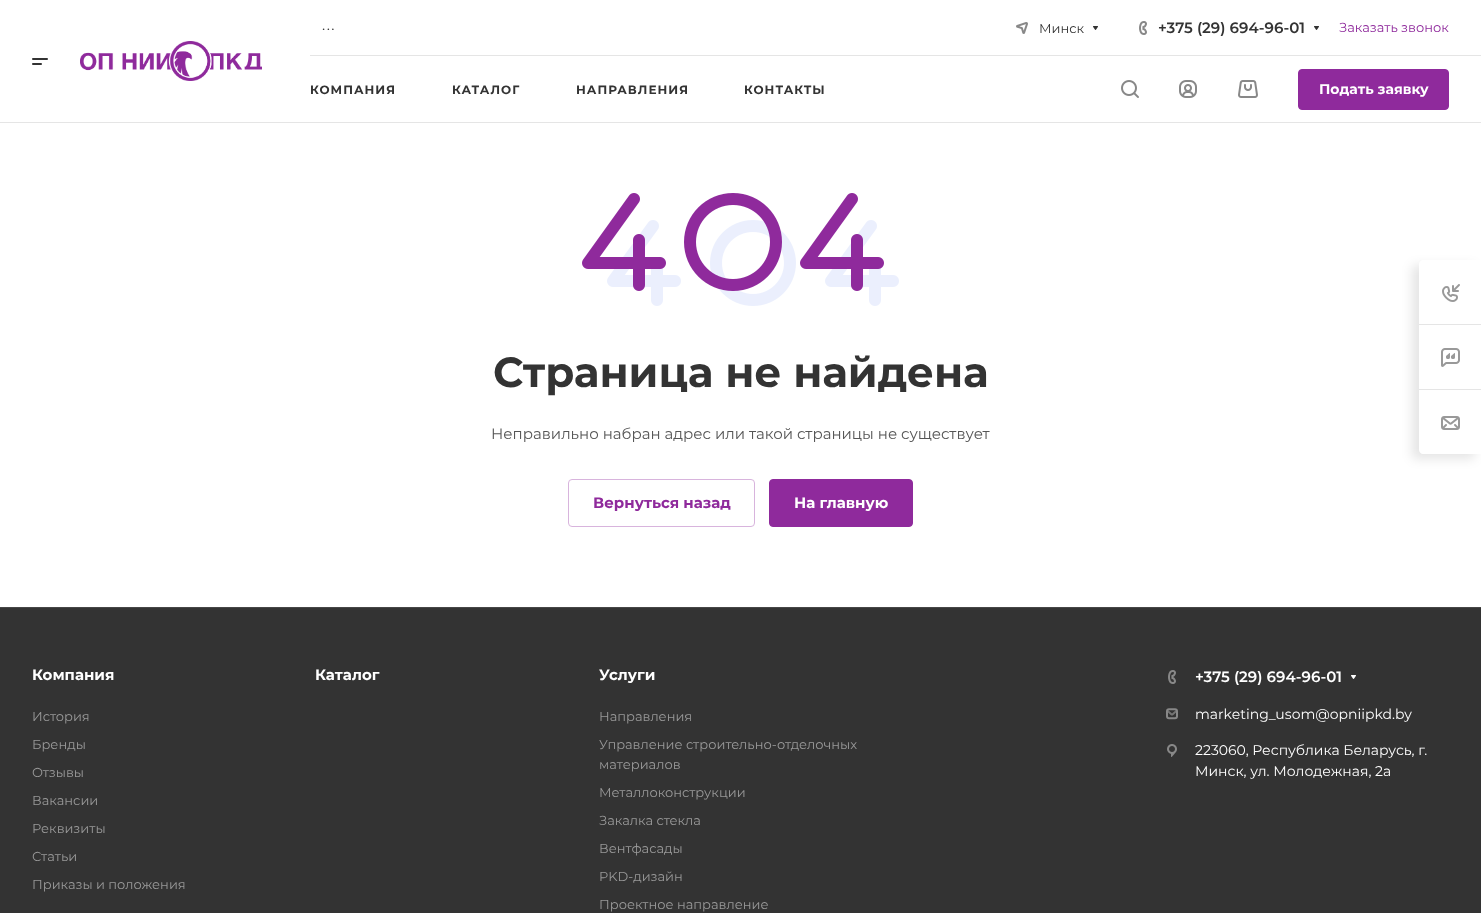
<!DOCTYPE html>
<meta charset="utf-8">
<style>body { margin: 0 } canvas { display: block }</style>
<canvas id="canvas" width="1481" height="913"></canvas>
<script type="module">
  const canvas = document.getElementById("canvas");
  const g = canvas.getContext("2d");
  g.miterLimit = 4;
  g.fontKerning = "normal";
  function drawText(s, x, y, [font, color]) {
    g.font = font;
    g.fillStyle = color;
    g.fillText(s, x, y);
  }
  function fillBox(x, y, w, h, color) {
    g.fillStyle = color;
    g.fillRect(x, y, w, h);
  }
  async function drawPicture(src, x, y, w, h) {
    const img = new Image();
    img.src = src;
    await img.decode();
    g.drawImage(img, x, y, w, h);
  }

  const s1 = ["15px Montserrat", "#333333"];
  const s2 = ["13px Montserrat", "#333333"];
  const s3 = ["600 15px Montserrat", "#333333"];
  const s4 = ["13px Montserrat", "#8F2A9C"];
  const s5 = ["bold 12px Montserrat", "#333333"];
  const s6 = ["bold 14px Montserrat", "#FFFFFF"];
  const s7 = ["bold 42px Montserrat", "#333333"];
  const s8 = ["15px Montserrat", "#555555"];
  const s9 = ["bold 15px Montserrat", "#8F2A9C"];
  const s10 = ["bold 15px Montserrat", "#FFFFFF"];
  const s11 = ["13px Montserrat", "#999999"];
  const s12 = ["600 15px Montserrat", "#FFFFFF"];
  const s13 = ["14px Montserrat", "#FFFFFF"];

  fillBox(0, 0, 1481, 913, "#FFFFFF");
  fillBox(0, 122, 1481, 1, "#E5E5E5");
  await drawPicture("pic1.png", 32, 58, 16, 7);
  await drawPicture("pic2.png", 80, 41, 182, 40);
  fillBox(310, 55, 1171, 1, "#E5E5E5");
  g.letterSpacing = "1.5px";
  drawText("...", 322, 30, s1);
  await drawPicture("pic3.png", 1016, 22, 12, 12);
  g.letterSpacing = "0px";
  drawText("Минск", 1039, 33, s2);
  await drawPicture("pic4.png", 1093, 26, 5, 4);
  await drawPicture("pic5.png", 1139, 21, 8, 14);
  drawText("+375 (29) 694-96-01", 1158, 33, s3);
  await drawPicture("pic4.png", 1314, 26, 5, 4);
  drawText("Заказать звонок", 1339, 32, s4);
  g.letterSpacing = "1px";
  drawText("КОМПАНИЯ", 310, 94, s5);
  drawText("КАТАЛОГ", 452, 94, s5);
  drawText("НАПРАВЛЕНИЯ", 576, 94, s5);
  drawText("КОНТАКТЫ", 744, 94, s5);
  await drawPicture("pic6.png", 1121, 80, 18, 18);
  await drawPicture("pic7.png", 1179, 80, 18, 18);
  await drawPicture("pic8.png", 1238, 80, 20, 18);
  g.fillStyle = "#8F2A9C";
  g.beginPath();
  g.roundRect(1298.5, 69.5, 150, 40, 3.5);
  g.fill();
  g.strokeStyle = "#8F2A9C";
  g.stroke();
  g.letterSpacing = "0px";
  drawText("Подать заявку", 1319, 94, s6);
  await drawPicture("pic9.png", 582, 193, 317, 113);
  drawText("Страница не найдена", 493, 387, s7);
  drawText("Неправильно набран адрес или такой страницы не существует", 491, 439, s8);
  g.beginPath();
  g.roundRect(568.5, 479.5, 186, 47, 3.5);
  g.strokeStyle = "#D8B4DD";
  g.stroke();
  drawText("Вернуться назад", 593, 508, s9);
  g.beginPath();
  g.roundRect(769.5, 479.5, 143, 47, 3.5);
  g.fill();
  g.strokeStyle = "#8F2A9C";
  g.stroke();
  drawText("На главную", 794, 508, s10);
  g.fillStyle = "rgba(0, 0, 0, 0.1)";
  g.filter = "blur(5.5px)";
  g.beginPath();
  g.roundRect(1412, 265, 63, 194, 4);
  g.fill();
  g.filter = "none";
  g.fillStyle = "#FFFFFF";
  g.beginPath();
  g.moveTo(1423, 260);
  g.lineTo(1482, 260);
  g.lineTo(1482, 454);
  g.lineTo(1423, 454);
  g.bezierCurveTo(1421, 454, 1419, 452, 1419, 450);
  g.lineTo(1419, 264);
  g.bezierCurveTo(1419, 262, 1421, 260, 1423, 260);
  g.closePath();
  g.fill();
  await drawPicture("pic10.png", 1442, 284, 18, 18);
  fillBox(1419, 324, 62, 1, "#E5E5E5");
  await drawPicture("pic11.png", 1441, 348, 19, 19);
  fillBox(1419, 389, 62, 1, "#E5E5E5");
  await drawPicture("pic12.png", 1441, 416, 19, 14);
  fillBox(0, 608, 1481, 305, "#333333");
  fillBox(0, 607, 1481, 1, "#474747");
  drawText("Компания", 32, 680, s10);
  drawText("История", 32, 721, s11);
  drawText("Бренды", 32, 749, s11);
  drawText("Отзывы", 32, 777, s11);
  drawText("Вакансии", 32, 805, s11);
  drawText("Реквизиты", 32, 833, s11);
  drawText("Статьи", 32, 861, s11);
  drawText("Приказы и положения", 32, 889, s11);
  drawText("Каталог", 315, 680, s10);
  drawText("Услуги", 599, 680, s10);
  drawText("Направления", 599, 721, s11);
  drawText("Управление строительно-отделочных", 599, 749, s11);
  drawText("материалов", 599, 769, s11);
  drawText("Металлоконструкции", 599, 797, s11);
  drawText("Закалка стекла", 599, 825, s11);
  drawText("Вентфасады", 599, 853, s11);
  drawText("PKD-дизайн", 599, 881, s11);
  drawText("Проектное направление", 599, 909, s11);
  await drawPicture("pic13.png", 1168, 670, 8, 14);
  drawText("+375 (29) 694-96-01", 1195, 682, s12);
  await drawPicture("pic14.png", 1351, 675, 5, 4);
  await drawPicture("pic15.png", 1166, 708, 12, 12);
  drawText("marketing_usom@opniipkd.by", 1195, 719, s13);
  await drawPicture("pic16.png", 1167, 744, 10, 13);
  drawText("223060, Республика Беларусь, г.", 1195, 755, s13);
  drawText("Минск, ул. Молодежная, 2а", 1195, 776, s13);
</script>
